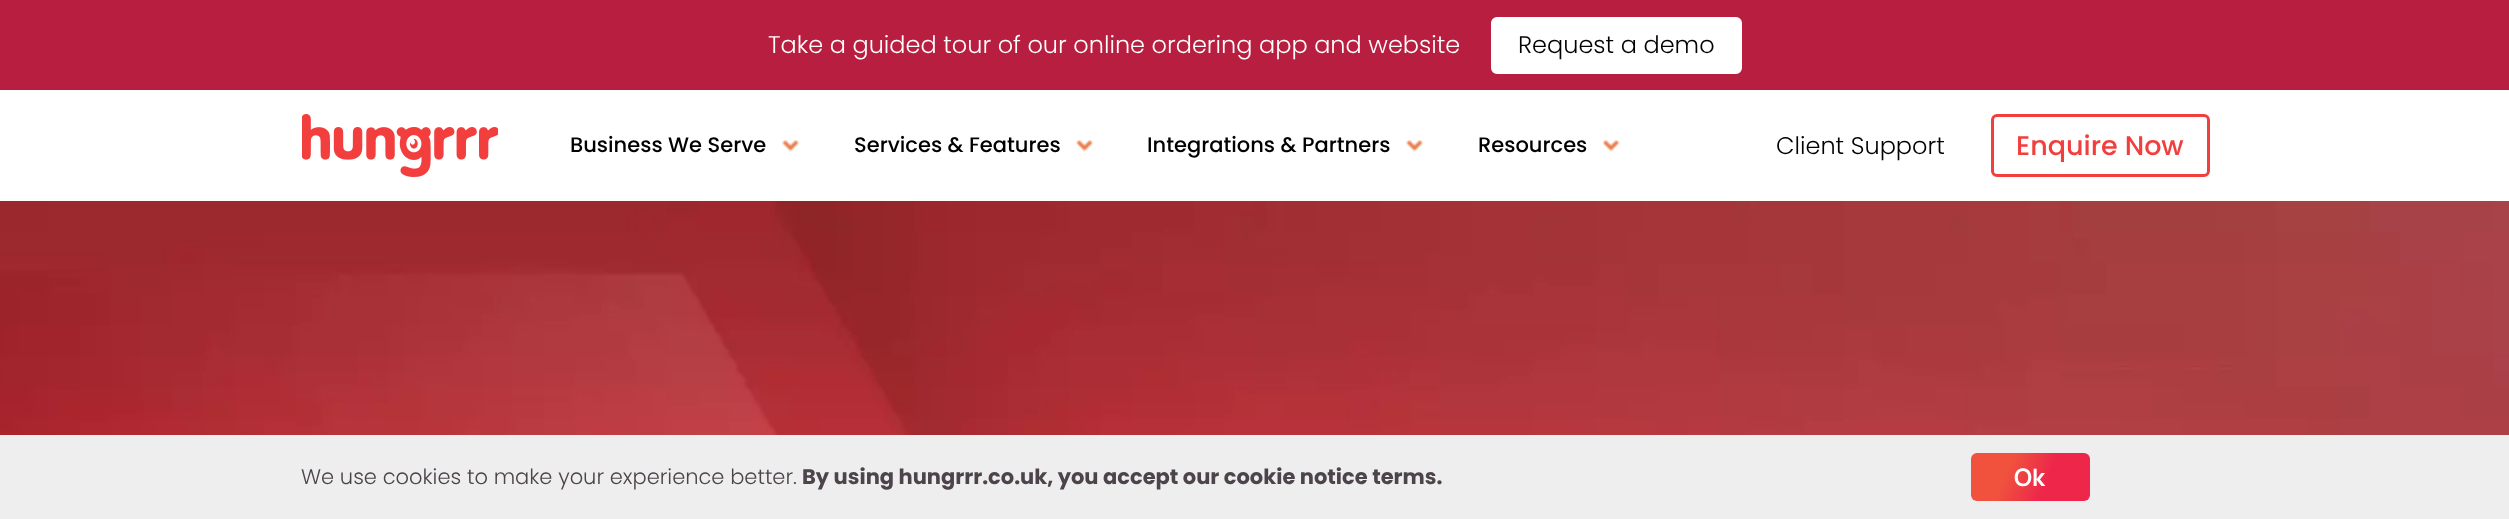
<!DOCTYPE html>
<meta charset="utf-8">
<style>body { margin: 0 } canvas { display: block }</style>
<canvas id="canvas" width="2509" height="519"></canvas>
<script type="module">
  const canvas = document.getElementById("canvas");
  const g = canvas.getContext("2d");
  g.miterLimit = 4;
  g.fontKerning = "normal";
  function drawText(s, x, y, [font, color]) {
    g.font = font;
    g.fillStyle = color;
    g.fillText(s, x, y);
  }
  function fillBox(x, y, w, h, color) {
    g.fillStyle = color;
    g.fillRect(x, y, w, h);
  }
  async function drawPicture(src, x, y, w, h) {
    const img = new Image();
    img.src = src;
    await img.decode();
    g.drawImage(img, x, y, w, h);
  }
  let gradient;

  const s1 = ["300 24px Poppins", "#FFFFFF"];
  const s2 = ["300 24px Poppins", "#000000"];
  const s3 = ["500 21px Poppins", "#000000"];
  const s4 = ["500 27px Poppins", "#F33E3E"];
  const s5 = ["300 21px Poppins", "#4C434B"];
  const s6 = ["bold 21px Poppins", "#4C434B"];
  const s7 = ["bold 24px Manrope", "#FFFFFF"];

  fillBox(0, 0, 2509, 519, "#FFFFFF");
  fillBox(0, 0, 2509, 90, "#B81E40");
  drawText("Take a guided tour of our online ordering app and website", 768, 53, s1);
  g.beginPath();
  g.roundRect(1492.5, 18.5, 248, 54, 4.5);
  g.fill();
  g.strokeStyle = "#FFFFFF";
  g.lineWidth = 3;
  g.stroke();
  drawText("Request a demo", 1518, 53, s2);
  await drawPicture("pic1.png", 302, 114, 196, 63);
  drawText("Business We Serve", 570, 152, s3);
  await drawPicture("pic2.png", 782, 140, 17, 12);
  drawText("Services & Features", 854, 152, s3);
  await drawPicture("pic2.png", 1076, 140, 17, 12);
  drawText("Integrations & Partners", 1147, 152, s3);
  await drawPicture("pic2.png", 1406, 140, 17, 12);
  drawText("Resources", 1478, 152, s3);
  await drawPicture("pic3.png", 1602, 140, 18, 12);
  drawText("Client Support", 1776, 154, s2);
  g.beginPath();
  g.roundRect(1992.5, 115.5, 216, 60, 4.5);
  g.strokeStyle = "#F33E3E";
  g.stroke();
  drawText("Enquire Now", 2016, 155, s4);
  await drawPicture("pic4.png", 0, 201, 2509, 234);
  fillBox(0, 435, 2509, 84, "#EEEEEE");
  drawText("We use cookies to make your experience better.", 301, 484, s5);
  drawText("By using hungrrr.co.uk, you accept our cookie notice terms.", 802, 484, s6);
  gradient = g.createLinearGradient(1971, 452, 2089, 502);
  gradient.addColorStop(0.32, "#F0523E");
  gradient.addColorStop(0.64, "#ED264A");
  g.fillStyle = gradient;
  g.beginPath();
  g.roundRect(1971, 453, 119, 48, 6);
  g.fill();
  drawText("Ok", 2014, 486, s7);
</script>
